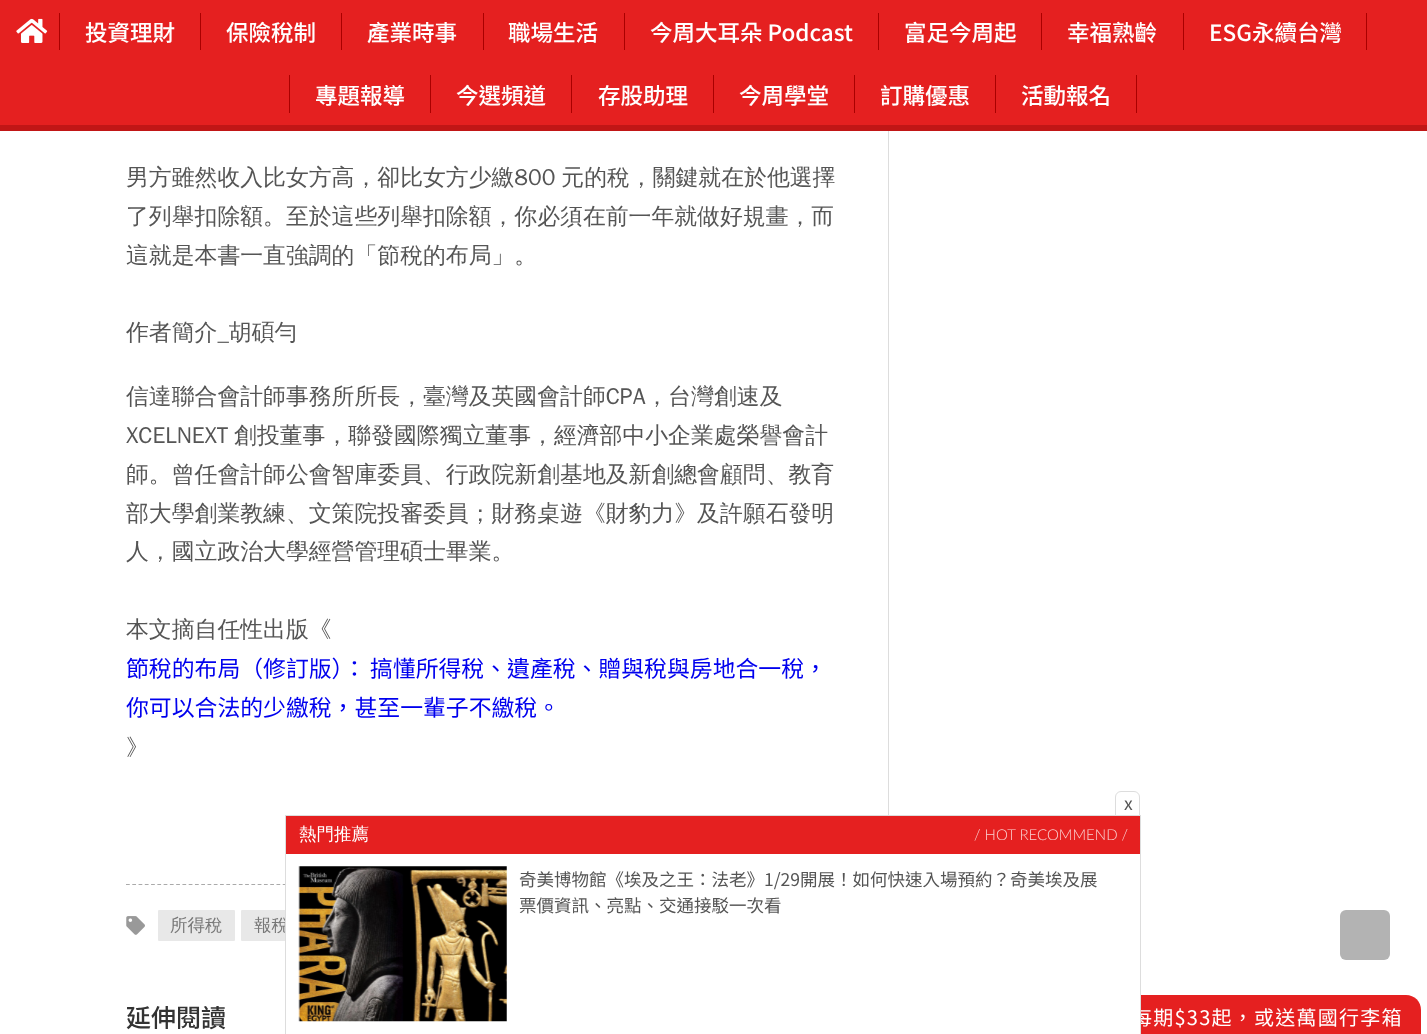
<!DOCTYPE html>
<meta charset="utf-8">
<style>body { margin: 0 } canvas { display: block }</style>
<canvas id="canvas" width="1427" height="1034"></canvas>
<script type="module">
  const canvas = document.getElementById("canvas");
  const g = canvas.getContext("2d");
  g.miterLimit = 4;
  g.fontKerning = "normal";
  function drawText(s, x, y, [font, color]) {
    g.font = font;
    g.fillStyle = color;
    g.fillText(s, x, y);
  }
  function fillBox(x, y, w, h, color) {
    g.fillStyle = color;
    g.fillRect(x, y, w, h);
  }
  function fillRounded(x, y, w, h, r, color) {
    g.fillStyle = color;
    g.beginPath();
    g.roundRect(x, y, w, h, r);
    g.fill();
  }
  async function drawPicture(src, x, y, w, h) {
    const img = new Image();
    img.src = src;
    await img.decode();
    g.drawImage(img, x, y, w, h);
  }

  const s1 = ["500 22.5px Noto Sans TC", "#FFFFFF"];
  const s2 = ["500 22.85px WenQuanYi Zen Hei", "#555555"];
  const s3 = ["22.85px Noto Sans TC", "#0000EE"];
  const s4 = ["500 17.5px WenQuanYi Zen Hei", "#777777"];
  const s5 = ["500 25px Noto Sans TC", "#333333"];
  const s6 = ["20px Noto Sans TC", "#FFFFFF"];
  const s7 = ["17.5px Noto Sans TC", "#555555"];
  const s8 = ["500 17.5px WenQuanYi Zen Hei", "#FFFFFF"];
  const s9 = ["300 15px Lato", "#FAD2D2"];

  fillBox(0, 0, 1427, 1034, "#FFFFFF");
  fillBox(0, 0, 1427, 125, "#E52020");
  fillBox(0, 125, 1427, 6, "#C11616");
  await drawPicture("pic1.png", 16, 18, 32, 25);
  fillBox(200, 13, 1, 37, "#AA0000");
  fillBox(59, 13, 1, 37, "#AA0000");
  drawText("投資理財", 85, 41, s1);
  fillBox(341, 13, 1, 37, "#AA0000");
  drawText("保險稅制", 226, 41, s1);
  fillBox(483, 13, 1, 37, "#AA0000");
  drawText("產業時事", 367, 41, s1);
  fillBox(624, 13, 1, 37, "#AA0000");
  drawText("職場生活", 508, 41, s1);
  fillBox(878, 13, 1, 37, "#AA0000");
  drawText("今周大耳朵 Podcast", 650, 41, s1);
  fillBox(1041, 13, 1, 37, "#AA0000");
  drawText("富足今周起", 904, 41, s1);
  fillBox(1183, 13, 1, 37, "#AA0000");
  drawText("幸福熟齡", 1067, 41, s1);
  fillBox(1366, 13, 1, 37, "#AA0000");
  drawText("ESG永續台灣", 1209, 41, s1);
  fillBox(430, 75, 1, 38, "#AA0000");
  fillBox(289, 75, 1, 38, "#AA0000");
  drawText("專題報導", 315, 104, s1);
  fillBox(571, 75, 1, 38, "#AA0000");
  drawText("今選頻道", 456, 104, s1);
  fillBox(713, 75, 1, 38, "#AA0000");
  drawText("存股助理", 598, 104, s1);
  fillBox(854, 75, 1, 38, "#AA0000");
  drawText("今周學堂", 739, 104, s1);
  fillBox(995, 75, 1, 38, "#AA0000");
  drawText("訂購優惠", 880, 104, s1);
  fillBox(1136, 75, 1, 38, "#AA0000");
  drawText("活動報名", 1021, 104, s1);
  g.wordSpacing = "-1px";
  drawText("男方雖然收入比女方高，卻比女方少繳800 元的稅，關鍵就在於他選擇", 126, 185, s2);
  g.wordSpacing = "0px";
  drawText("了列舉扣除額。至於這些列舉扣除額，你必須在前一年就做好規畫，而", 126, 224, s2);
  drawText("這就是本書一直強調的「節稅的布局」。", 126, 263, s2);
  drawText("作者簡介_胡碩勻", 126, 340, s2);
  drawText("信達聯合會計師事務所所長，臺灣及英國會計師CPA，台灣創速及", 126, 404, s2);
  g.wordSpacing = "-1px";
  drawText("XCELNEXT 創投董事，聯發國際獨立董事，經濟部中小企業處榮譽會計", 126, 443, s2);
  g.wordSpacing = "0px";
  drawText("師。曾任會計師公會智庫委員、行政院新創基地及新創總會顧問、教育", 126, 482, s2);
  drawText("部大學創業教練、文策院投審委員；財務桌遊《財豹力》及許願石發明", 126, 521, s2);
  drawText("人，國立政治大學經營管理碩士畢業。", 126, 559, s2);
  drawText("本文摘自任性出版《", 126, 637, s2);
  g.wordSpacing = "-1px";
  drawText("節稅的布局（修訂版）： 搞懂所得稅、遺產稅、贈與稅與房地合一稅，", 126, 677, s3);
  g.wordSpacing = "0px";
  drawText("你可以合法的少繳稅，甚至一輩子不繳稅。", 126, 716, s3);
  drawText("》", 126, 755, s2);
  fillBox(888, 131, 1, 684, "#DDDDDD");
  g.beginPath();
  g.moveTo(126, 884.5);
  g.lineTo(851, 884.5);
  g.strokeStyle = "#AAAAAA";
  g.lineWidth = 1.2;
  g.setLineDash([3.75, 2.52]);
  g.stroke();
  await drawPicture("pic2.png", 126, 916, 19, 19);
  fillRounded(158, 910, 77, 31, 1, "#E8E8E8");
  drawText("所得稅", 170, 931, s4);
  fillRounded(241, 910, 60, 31, 1, "#E8E8E8");
  drawText("報稅", 254, 931, s4);
  drawText("延伸閱讀", 126, 1027, s5);
  g.fillStyle = "#E52020";
  g.beginPath();
  g.moveTo(974, 995);
  g.lineTo(1406, 995);
  g.bezierCurveTo(1414.5, 995, 1421, 1001.5, 1421, 1010);
  g.lineTo(1421, 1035);
  g.lineTo(959, 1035);
  g.lineTo(959, 1010);
  g.bezierCurveTo(959, 1001.5, 965.5, 995, 974, 995);
  g.closePath();
  g.fill();
  g.letterSpacing = "1.25px";
  drawText("每期$33起，或送萬國行李箱", 1132, 1025, s6);
  g.strokeStyle = "#DDDDDD";
  g.lineWidth = 1;
  g.setLineDash([]);
  g.strokeRect(285.5, 815.5, 855, 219);
  g.beginPath();
  g.roundRect(1115.5, 791.5, 24, 24, [5.5, 5.5, 0, 0]);
  g.fill();
  g.stroke();
  g.letterSpacing = "0px";
  drawText("x", 1124, 810, s7);
  fillBox(286, 816, 854, 38, "#E52020");
  drawText("熱門推薦", 299, 840, s8);
  drawText("/ HOT RECOMMEND /", 974, 840, s9);
  fillBox(286, 883, 854, 151, "#FFFFFF");
  await drawPicture("pic3.png", 298, 866, 209, 156);
  drawText("奇美博物館《埃及之王：法老》1/29開展！如何快速入場預約？奇美埃及展", 519, 886, s7);
  drawText("票價資訊、亮點、交通接駁一次看", 519, 912, s7);
  fillRounded(1340, 910, 50, 50, 6, "#B3B3B3");
</script>
